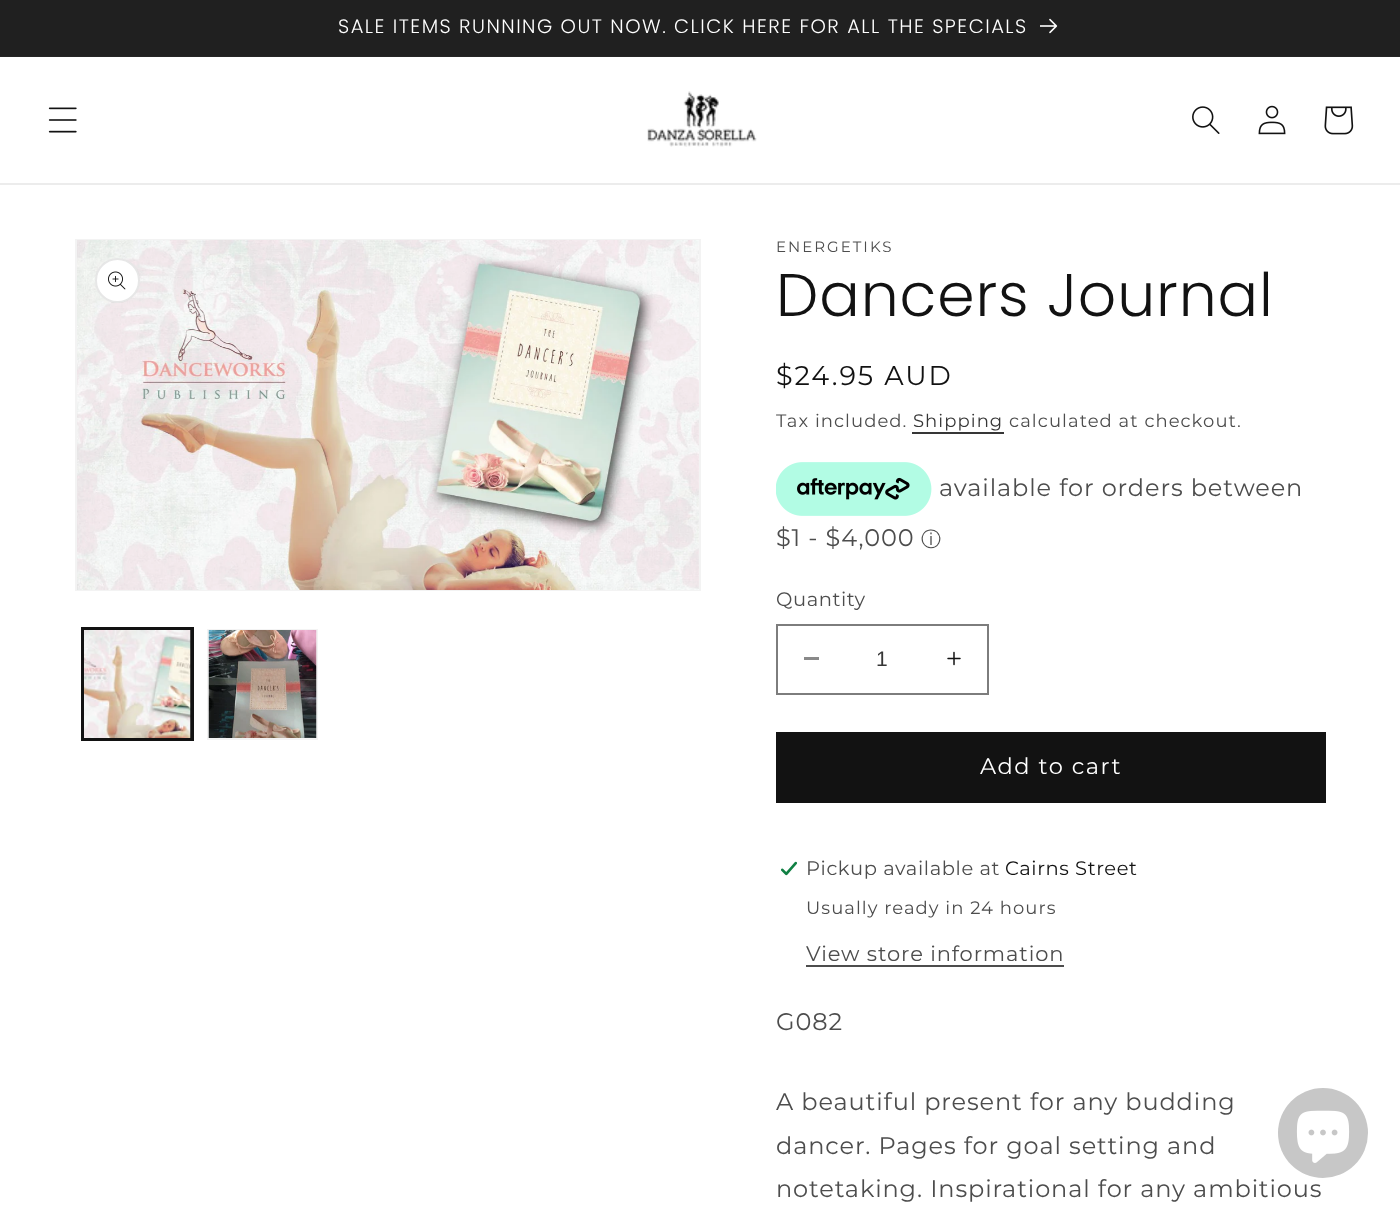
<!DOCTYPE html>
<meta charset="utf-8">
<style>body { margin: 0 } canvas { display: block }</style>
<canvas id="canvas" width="1400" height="1208"></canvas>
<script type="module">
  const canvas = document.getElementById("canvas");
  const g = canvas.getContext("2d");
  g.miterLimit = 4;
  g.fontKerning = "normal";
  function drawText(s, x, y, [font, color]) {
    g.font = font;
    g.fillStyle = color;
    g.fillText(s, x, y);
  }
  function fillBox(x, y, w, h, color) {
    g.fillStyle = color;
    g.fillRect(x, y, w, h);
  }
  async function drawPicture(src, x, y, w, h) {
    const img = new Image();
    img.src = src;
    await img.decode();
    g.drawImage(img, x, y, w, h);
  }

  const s1 = ["300 19.5px Poppins", "#FFFFFF"];
  const s2 = ["15px Montserrat", "#4D4D4D"];
  const s3 = ["300 60px Poppins", "#121212"];
  const s4 = ["27px Montserrat", "#121212"];
  const s5 = ["18px Montserrat", "#4D4D4D"];
  const s6 = ["18px Montserrat", "#363636"];
  const s7 = ["24px Montserrat", "#4D4D4D"];
  const s8 = ["500 20px WenQuanYi Zen Hei", "#4D4D4D"];
  const s9 = ["19.5px Montserrat", "#4D4D4D"];
  const s10 = ["21px Liberation Sans", "#363636"];
  const s11 = ["22.5px Montserrat", "#FFFFFF"];
  const s12 = ["19.5px Montserrat", "#121212"];
  const s13 = ["21px Montserrat", "#4D4D4D"];

  fillBox(0, 0, 1400, 1208, "#FFFFFF");
  fillBox(0, 56, 1400, 1, "#252525");
  fillBox(0, 0, 1400, 56, "#202020");
  g.letterSpacing = "1.5px";
  drawText("SALE ITEMS RUNNING OUT NOW. CLICK HERE FOR ALL THE SPECIALS", 338, 33, s1);
  await drawPicture("pic1.png", 1040, 18, 18, 16);
  fillBox(0, 183, 1400, 2, "#ECECEC");
  await drawPicture("pic2.png", 48, 107, 29, 26);
  await drawPicture("pic3.png", 647, 91, 110, 56);
  await drawPicture("pic4.png", 1192, 106, 28, 28);
  await drawPicture("pic5.png", 1258, 105, 28, 30);
  await drawPicture("pic6.png", 1324, 106, 30, 29);
  g.strokeStyle = "#F3F3F3";
  g.lineWidth = 2;
  g.strokeRect(76, 240, 624, 350);
  await drawPicture("pic7.png", 77, 240, 622, 350);
  g.fillStyle = "#FFFFFF";
  g.beginPath();
  g.arc(117.5, 280.5, 22.5, 0, Math.PI * 2);
  g.fill();
  g.beginPath();
  g.arc(117.5, 280.5, 21.5, 0, Math.PI * 2);
  g.strokeStyle = "rgba(18, 18, 18, 0.1)";
  g.stroke();
  await drawPicture("pic8.png", 108, 271, 18, 19);
  g.strokeStyle = "#121212";
  g.strokeRect(82, 628, 111, 112);
  g.strokeRect(84, 630, 107, 109);
  await drawPicture("pic9.png", 84, 630, 107, 108);
  g.strokeStyle = "#F3F3F3";
  g.strokeRect(208, 630, 109, 109);
  await drawPicture("pic10.png", 208, 630, 109, 108);
  g.letterSpacing = "2px";
  drawText("ENERGETIKS", 776, 252, s2);
  g.letterSpacing = "0.9px";
  drawText("Dancers Journal", 776, 316, s3);
  g.letterSpacing = "2px";
  drawText("$24.95 AUD", 776, 385, s4);
  g.letterSpacing = "1.05px";
  drawText("Tax included.", 776, 427, s5);
  drawText("Shipping", 913, 427, s6);
  fillBox(912, 432, 92, 2, "#363636");
  drawText("calculated at checkout.", 1009, 427, s5);
  await drawPicture("pic11.png", 776, 462, 156, 54);
  g.letterSpacing = "0.9px";
  drawText("available for orders between", 939, 496, s7);
  drawText("$1 - $4,000", 776, 546, s7);
  g.letterSpacing = "0px";
  drawText("ⓘ", 921, 546, s8);
  g.letterSpacing = "0.6px";
  drawText("Quantity", 776, 606, s9);
  fillBox(804, 657, 15, 3, "#898989");
  await drawPicture("pic12.png", 947, 651, 14, 15);
  g.strokeStyle = "#7D7D7D";
  g.strokeRect(777, 625, 211, 69);
  g.letterSpacing = "0px";
  drawText("1", 876, 666, s10);
  fillBox(776, 732, 550, 71, "#121212");
  g.letterSpacing = "1.5px";
  drawText("Add to cart", 980, 774, s11);
  await drawPicture("pic13.png", 780, 861, 18, 15);
  g.letterSpacing = "0.6px";
  drawText("Pickup available at", 806, 875, s9);
  drawText("Cairns Street", 1005, 875, s12);
  g.letterSpacing = "1.05px";
  drawText("Usually ready in 24 hours", 806, 914, s5);
  g.letterSpacing = "0.9px";
  drawText("View store information", 806, 961, s13);
  fillBox(806, 965, 258, 2, "#4D4D4D");
  drawText("G082", 776, 1030, s7);
  drawText("A beautiful present for any budding", 776, 1110, s7);
  drawText("dancer. Pages for goal setting and", 776, 1154, s7);
  drawText("notetaking. Inspirational for any ambitious", 776, 1197, s7);
  g.fillStyle = "#C7C7C7";
  g.beginPath();
  g.arc(1323, 1133, 45, 0, Math.PI * 2);
  g.fill();
  await drawPicture("pic14.png", 1296, 1110, 54, 53);
</script>
